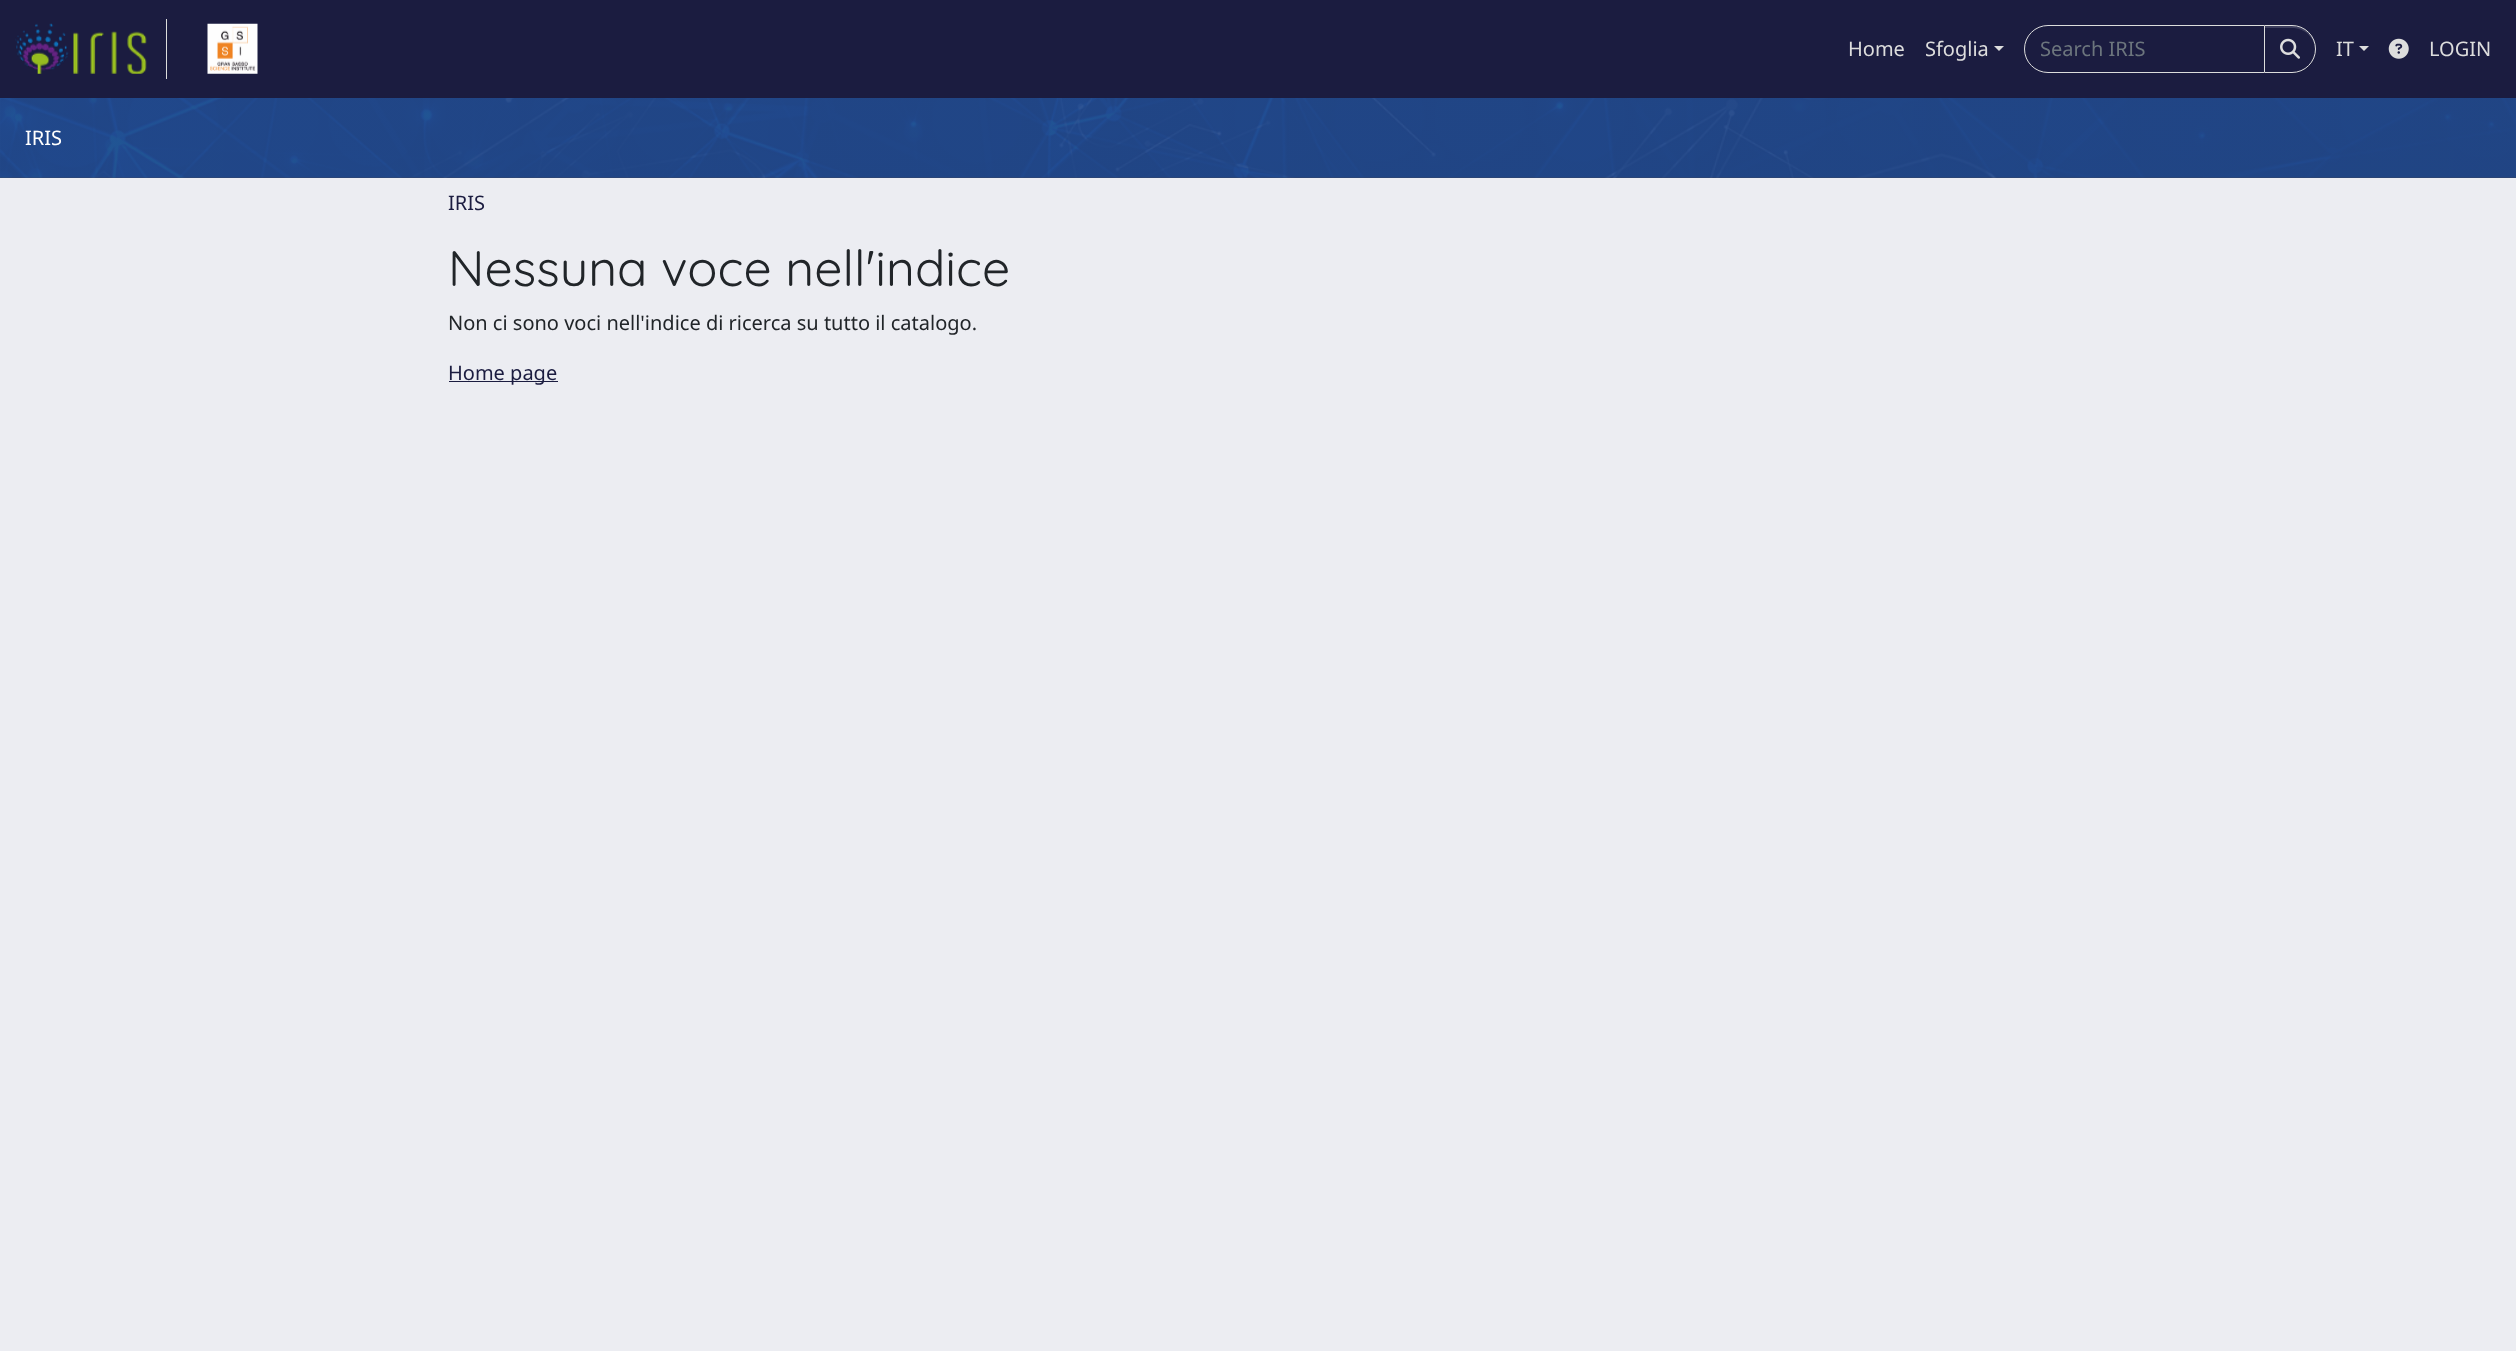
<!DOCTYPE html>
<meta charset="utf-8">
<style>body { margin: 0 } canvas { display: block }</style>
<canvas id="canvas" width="2516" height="1351"></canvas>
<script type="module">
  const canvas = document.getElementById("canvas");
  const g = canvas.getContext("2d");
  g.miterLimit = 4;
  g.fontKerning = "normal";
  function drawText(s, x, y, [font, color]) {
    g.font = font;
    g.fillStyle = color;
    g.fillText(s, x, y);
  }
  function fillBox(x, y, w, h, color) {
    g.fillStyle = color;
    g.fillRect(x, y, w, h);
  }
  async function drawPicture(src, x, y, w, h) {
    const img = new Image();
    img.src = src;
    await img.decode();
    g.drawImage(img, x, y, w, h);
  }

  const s1 = ["20px Noto Sans", "#DDDDDD"];
  const s2 = ["20px Noto Sans", "#6C757D"];
  const s3 = ["20px Noto Sans", "#FFFFFF"];
  const s4 = ["20px Noto Sans", "#1B1C40"];
  const s5 = ["50px Quicksand", "#212529"];
  const s6 = ["20px Noto Sans", "#212529"];

  fillBox(0, 0, 2516, 1351, "#ECEDF2");
  fillBox(0, 0, 2516, 98, "#1B1C40");
  fillBox(166, 19, 1, 60, "#DDDDDD");
  await drawPicture("pic1.png", 15, 23, 132, 51);
  await drawPicture("pic2.png", 207, 23, 51, 51);
  drawText("Home", 1848, 56, s1);
  drawText("Sfoglia", 1925, 56, s1);
  g.beginPath();
  g.moveTo(1994, 46);
  g.lineTo(2004, 46);
  g.lineTo(1999, 51);
  g.closePath();
  g.fill();
  g.beginPath();
  g.roundRect(2024.5, 25.5, 240, 47, [23.5, 0, 0, 23.5]);
  g.strokeStyle = "#DDDDDD";
  g.stroke();
  drawText("Search IRIS", 2040, 56, s2);
  g.fillStyle = "rgba(0, 0, 0, 0.07)";
  g.filter = "blur(0.5px)";
  g.beginPath();
  g.roundRect(2264, 26, 52, 48, 24);
  g.fill();
  g.filter = "none";
  g.fillStyle = "#1B1C40";
  g.beginPath();
  g.roundRect(2264, 25, 52, 48, [0, 24, 24, 0]);
  g.fill();
  g.fillStyle = "#3D3E5D";
  g.beginPath();
  g.moveTo(2265, 28);
  g.lineTo(2292, 28);
  g.bezierCurveTo(2305, 28, 2315, 38, 2315, 49);
  g.lineTo(2315, 48);
  g.bezierCurveTo(2315, 36, 2305, 26, 2292, 26);
  g.lineTo(2265, 26);
  g.closePath();
  g.fill();
  g.beginPath();
  g.roundRect(2264.5, 25.5, 51, 47, [0, 23.5, 23.5, 0]);
  g.stroke();
  await drawPicture("pic3.png", 2280, 38, 20, 21);
  drawText("IT", 2336, 56, s1);
  g.beginPath();
  g.moveTo(2359, 46);
  g.lineTo(2369, 46);
  g.lineTo(2364, 51);
  g.closePath();
  g.fill();
  await drawPicture("pic4.png", 2388, 38, 21, 21);
  drawText("LOGIN", 2429, 56, s1);
  fillBox(0, 177, 2516, 1, "#2D3A42");
  await drawPicture("pic5.png", 0, 98, 2516, 80);
  drawText("IRIS", 25, 145, s3);
  drawText("IRIS", 448, 210, s4);
  drawText("Nessuna voce nell'indice", 448, 286, s5);
  drawText("Non ci sono voci nell'indice di ricerca su tutto il catalogo.", 448, 330, s6);
  fillBox(449, 381, 109, 1, "#1B1C40");
  drawText("Home page", 448, 380, s4);
</script>
